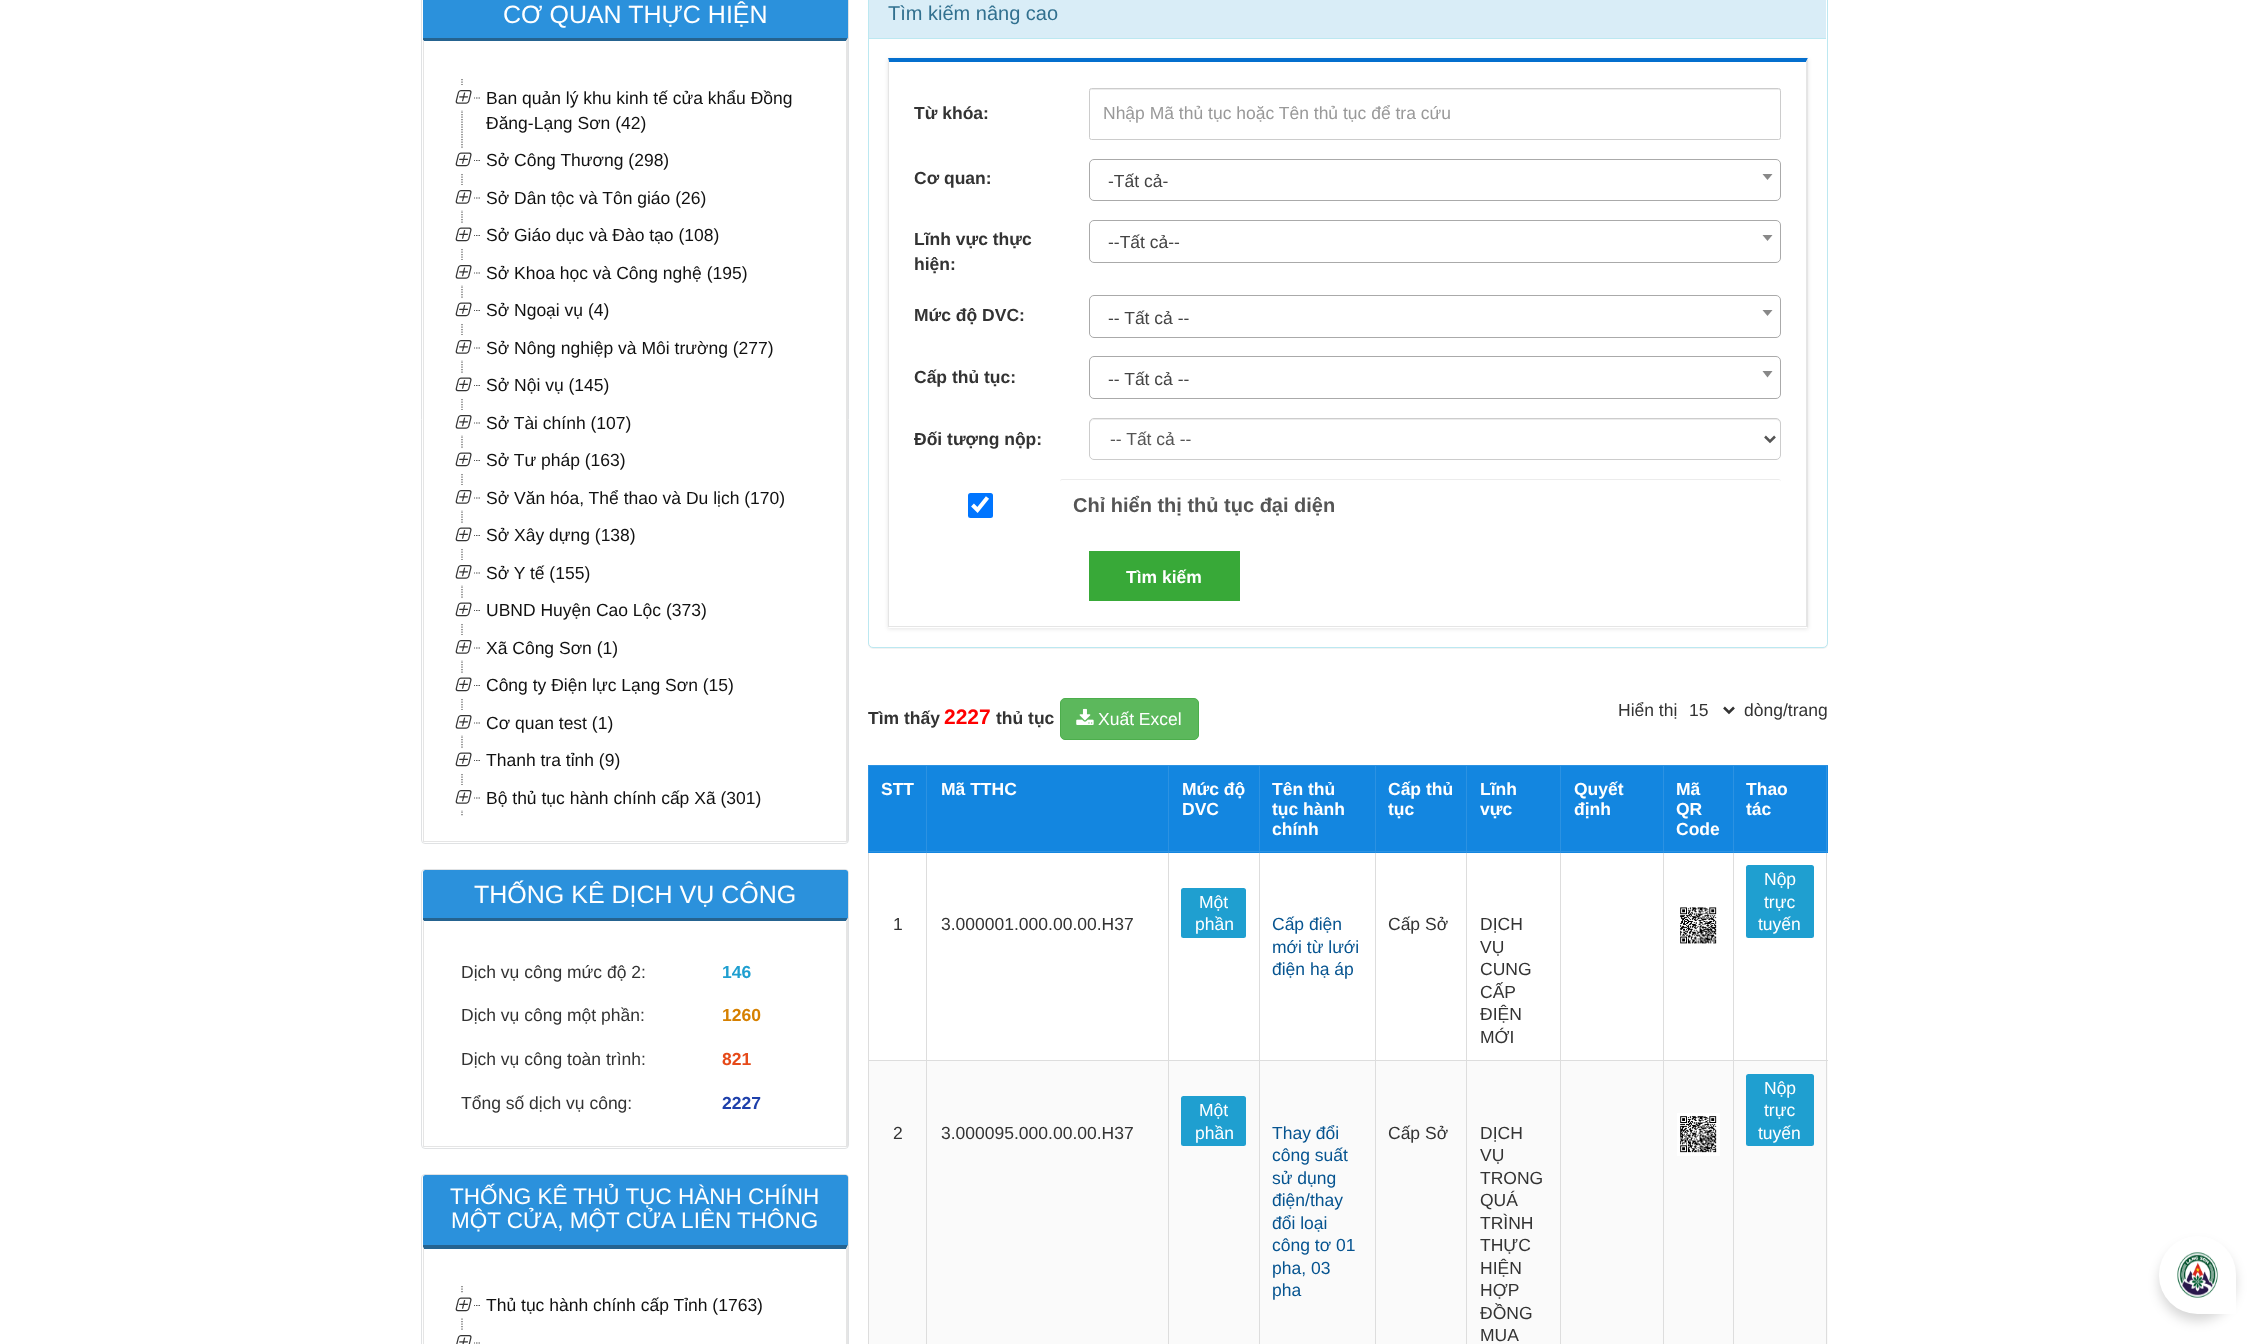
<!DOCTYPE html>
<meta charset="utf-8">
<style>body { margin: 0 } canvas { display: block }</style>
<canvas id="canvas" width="2267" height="1344"></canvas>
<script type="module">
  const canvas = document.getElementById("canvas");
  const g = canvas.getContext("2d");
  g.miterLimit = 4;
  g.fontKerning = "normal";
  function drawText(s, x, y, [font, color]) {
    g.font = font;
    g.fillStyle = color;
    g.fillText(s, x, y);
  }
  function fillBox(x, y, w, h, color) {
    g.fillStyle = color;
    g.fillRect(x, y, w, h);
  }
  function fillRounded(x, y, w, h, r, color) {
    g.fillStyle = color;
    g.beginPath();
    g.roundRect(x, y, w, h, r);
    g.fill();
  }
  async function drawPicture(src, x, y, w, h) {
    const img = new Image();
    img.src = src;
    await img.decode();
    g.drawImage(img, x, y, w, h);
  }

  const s1 = ["25px Liberation Sans", "#FFFFFF"];
  const s2 = ["17.5px Liberation Sans", "#111111"];
  const s3 = ["17.5px Liberation Sans", "#333333"];
  const s4 = ["bold 17.5px Liberation Sans", "#1F9FD0"];
  const s5 = ["bold 17.5px Liberation Sans", "#D68000"];
  const s6 = ["bold 17.5px Liberation Sans", "#E64A19"];
  const s7 = ["bold 17.5px Liberation Sans", "#1E40AB"];
  const s8 = ["22.5px Liberation Sans", "#FFFFFF"];
  const s9 = ["20px Liberation Sans", "#31708F"];
  const s10 = ["bold 17.5px Liberation Sans", "#333333"];
  const s11 = ["17.5px Liberation Sans", "#999999"];
  const s12 = ["17.5px Liberation Sans", "#444444"];
  const s13 = ["17.5px Liberation Sans", "#555555"];
  const s14 = ["bold 20px Liberation Sans", "#555555"];
  const s15 = ["bold 17.5px Liberation Sans", "#FFFFFF"];
  const s16 = ["bold 21px Liberation Sans", "#FF0000"];
  const s17 = ["17.5px Liberation Sans", "#FFFFFF"];
  const s18 = ["17.5px Liberation Sans", "#065490"];

  fillBox(0, 0, 2267, 1344, "#FFFFFF");
  g.beginPath();
  g.roundRect(421.5, -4.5, 427, 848, 3.5);
  g.strokeStyle = "#E0E2E4";
  g.stroke();
  fillBox(423, 0, 425, 38, "#2B91DC");
  drawText("CƠ QUAN THỰC HIỆN", 503, 23, s1);
  g.fillStyle = "#256390";
  g.beginPath();
  g.moveTo(423, 40);
  g.lineTo(423, 38);
  g.lineTo(848, 38);
  g.lineTo(846, 41);
  g.lineTo(424, 41);
  g.closePath();
  g.fill();
  g.fillStyle = "#E5E5E5";
  g.beginPath();
  g.moveTo(848, 38);
  g.lineTo(848, 842);
  g.lineTo(846, 841);
  g.lineTo(846, 41);
  g.closePath();
  g.fill();
  fillBox(423, 841, 425, 1, "#E5E5E5");
  g.beginPath();
  g.moveTo(423, 841);
  g.lineTo(423, 40);
  g.lineTo(424, 41);
  g.lineTo(424, 841);
  g.closePath();
  g.fill();
  g.beginPath();
  g.moveTo(462, 79);
  g.lineTo(462, 816);
  g.strokeStyle = "#555555";
  g.lineWidth = 1.2;
  g.setLineDash([1.25, 1.25]);
  g.stroke();
  fillBox(461, 85, 2, 25, "#FFFFFF");
  await drawPicture("pic1.png", 455, 90, 17, 14);
  g.beginPath();
  g.moveTo(474, 98);
  g.lineTo(475, 98);
  g.moveTo(476, 98);
  g.lineTo(477.5, 98);
  g.moveTo(478.5, 98);
  g.lineTo(480, 98);
  g.setLineDash([]);
  g.stroke();
  drawText("Ban quản lý khu kinh tế cửa khẩu Đồng", 486, 104, s2);
  drawText("Đăng-Lạng Sơn (42)", 486, 129, s2);
  fillBox(461, 149, 2, 24, "#FFFFFF");
  await drawPicture("pic2.png", 455, 152, 17, 15);
  g.beginPath();
  g.moveTo(474, 160.5);
  g.lineTo(475, 160.5);
  g.moveTo(476, 160.5);
  g.lineTo(477.5, 160.5);
  g.moveTo(478.5, 160.5);
  g.lineTo(480, 160.5);
  g.stroke();
  drawText("Sở Công Thương (298)", 486, 166, s2);
  fillBox(461, 185, 2, 25, "#FFFFFF");
  await drawPicture("pic1.png", 455, 190, 17, 14);
  g.beginPath();
  g.moveTo(474, 198);
  g.lineTo(475, 198);
  g.moveTo(476, 198);
  g.lineTo(477.5, 198);
  g.moveTo(478.5, 198);
  g.lineTo(480, 198);
  g.stroke();
  drawText("Sở Dân tộc và Tôn giáo (26)", 486, 204, s2);
  fillBox(461, 224, 2, 24, "#FFFFFF");
  await drawPicture("pic2.png", 455, 227, 17, 15);
  g.beginPath();
  g.moveTo(474, 235.5);
  g.lineTo(475, 235.5);
  g.moveTo(476, 235.5);
  g.lineTo(477.5, 235.5);
  g.moveTo(478.5, 235.5);
  g.lineTo(480, 235.5);
  g.stroke();
  drawText("Sở Giáo dục và Đào tạo (108)", 486, 241, s2);
  fillBox(461, 260, 2, 25, "#FFFFFF");
  await drawPicture("pic1.png", 455, 265, 17, 14);
  g.beginPath();
  g.moveTo(474, 273);
  g.lineTo(475, 273);
  g.moveTo(476, 273);
  g.lineTo(477.5, 273);
  g.moveTo(478.5, 273);
  g.lineTo(480, 273);
  g.stroke();
  drawText("Sở Khoa học và Công nghệ (195)", 486, 279, s2);
  fillBox(461, 299, 2, 24, "#FFFFFF");
  await drawPicture("pic2.png", 455, 302, 17, 15);
  g.beginPath();
  g.moveTo(474, 310.5);
  g.lineTo(475, 310.5);
  g.moveTo(476, 310.5);
  g.lineTo(477.5, 310.5);
  g.moveTo(478.5, 310.5);
  g.lineTo(480, 310.5);
  g.stroke();
  drawText("Sở Ngoại vụ (4)", 486, 316, s2);
  fillBox(461, 335, 2, 25, "#FFFFFF");
  await drawPicture("pic1.png", 455, 340, 17, 14);
  g.beginPath();
  g.moveTo(474, 348);
  g.lineTo(475, 348);
  g.moveTo(476, 348);
  g.lineTo(477.5, 348);
  g.moveTo(478.5, 348);
  g.lineTo(480, 348);
  g.stroke();
  drawText("Sở Nông nghiệp và Môi trường (277)", 486, 354, s2);
  fillBox(461, 374, 2, 24, "#FFFFFF");
  await drawPicture("pic2.png", 455, 377, 17, 15);
  g.beginPath();
  g.moveTo(474, 385.5);
  g.lineTo(475, 385.5);
  g.moveTo(476, 385.5);
  g.lineTo(477.5, 385.5);
  g.moveTo(478.5, 385.5);
  g.lineTo(480, 385.5);
  g.stroke();
  drawText("Sở Nội vụ (145)", 486, 391, s2);
  fillBox(461, 410, 2, 25, "#FFFFFF");
  await drawPicture("pic1.png", 455, 415, 17, 14);
  g.beginPath();
  g.moveTo(474, 423);
  g.lineTo(475, 423);
  g.moveTo(476, 423);
  g.lineTo(477.5, 423);
  g.moveTo(478.5, 423);
  g.lineTo(480, 423);
  g.stroke();
  drawText("Sở Tài chính (107)", 486, 429, s2);
  fillBox(461, 449, 2, 24, "#FFFFFF");
  await drawPicture("pic2.png", 455, 452, 17, 15);
  g.beginPath();
  g.moveTo(474, 460.5);
  g.lineTo(475, 460.5);
  g.moveTo(476, 460.5);
  g.lineTo(477.5, 460.5);
  g.moveTo(478.5, 460.5);
  g.lineTo(480, 460.5);
  g.stroke();
  drawText("Sở Tư pháp (163)", 486, 466, s2);
  fillBox(461, 485, 2, 25, "#FFFFFF");
  await drawPicture("pic1.png", 455, 490, 17, 14);
  g.beginPath();
  g.moveTo(474, 498);
  g.lineTo(475, 498);
  g.moveTo(476, 498);
  g.lineTo(477.5, 498);
  g.moveTo(478.5, 498);
  g.lineTo(480, 498);
  g.stroke();
  drawText("Sở Văn hóa, Thể thao và Du lịch (170)", 486, 504, s2);
  fillBox(461, 524, 2, 24, "#FFFFFF");
  await drawPicture("pic2.png", 455, 527, 17, 15);
  g.beginPath();
  g.moveTo(474, 535.5);
  g.lineTo(475, 535.5);
  g.moveTo(476, 535.5);
  g.lineTo(477.5, 535.5);
  g.moveTo(478.5, 535.5);
  g.lineTo(480, 535.5);
  g.stroke();
  drawText("Sở Xây dựng (138)", 486, 541, s2);
  fillBox(461, 560, 2, 25, "#FFFFFF");
  await drawPicture("pic1.png", 455, 565, 17, 14);
  g.beginPath();
  g.moveTo(474, 573);
  g.lineTo(475, 573);
  g.moveTo(476, 573);
  g.lineTo(477.5, 573);
  g.moveTo(478.5, 573);
  g.lineTo(480, 573);
  g.stroke();
  drawText("Sở Y tế (155)", 486, 579, s2);
  fillBox(461, 599, 2, 24, "#FFFFFF");
  await drawPicture("pic2.png", 455, 602, 17, 15);
  g.beginPath();
  g.moveTo(474, 610.5);
  g.lineTo(475, 610.5);
  g.moveTo(476, 610.5);
  g.lineTo(477.5, 610.5);
  g.moveTo(478.5, 610.5);
  g.lineTo(480, 610.5);
  g.stroke();
  drawText("UBND Huyện Cao Lộc (373)", 486, 616, s2);
  fillBox(461, 635, 2, 25, "#FFFFFF");
  await drawPicture("pic1.png", 455, 640, 17, 14);
  g.beginPath();
  g.moveTo(474, 648);
  g.lineTo(475, 648);
  g.moveTo(476, 648);
  g.lineTo(477.5, 648);
  g.moveTo(478.5, 648);
  g.lineTo(480, 648);
  g.stroke();
  drawText("Xã Công Sơn (1)", 486, 654, s2);
  fillBox(461, 674, 2, 24, "#FFFFFF");
  await drawPicture("pic2.png", 455, 677, 17, 15);
  g.beginPath();
  g.moveTo(474, 685.5);
  g.lineTo(475, 685.5);
  g.moveTo(476, 685.5);
  g.lineTo(477.5, 685.5);
  g.moveTo(478.5, 685.5);
  g.lineTo(480, 685.5);
  g.stroke();
  drawText("Công ty Điện lực Lạng Sơn (15)", 486, 691, s2);
  fillBox(461, 710, 2, 25, "#FFFFFF");
  await drawPicture("pic1.png", 455, 715, 17, 14);
  g.beginPath();
  g.moveTo(474, 723);
  g.lineTo(475, 723);
  g.moveTo(476, 723);
  g.lineTo(477.5, 723);
  g.moveTo(478.5, 723);
  g.lineTo(480, 723);
  g.stroke();
  drawText("Cơ quan test (1)", 486, 729, s2);
  fillBox(461, 749, 2, 24, "#FFFFFF");
  await drawPicture("pic2.png", 455, 752, 17, 15);
  g.beginPath();
  g.moveTo(474, 760.5);
  g.lineTo(475, 760.5);
  g.moveTo(476, 760.5);
  g.lineTo(477.5, 760.5);
  g.moveTo(478.5, 760.5);
  g.lineTo(480, 760.5);
  g.stroke();
  drawText("Thanh tra tỉnh (9)", 486, 766, s2);
  fillBox(461, 785, 2, 25, "#FFFFFF");
  await drawPicture("pic1.png", 455, 790, 17, 14);
  g.beginPath();
  g.moveTo(474, 798);
  g.lineTo(475, 798);
  g.moveTo(476, 798);
  g.lineTo(477.5, 798);
  g.moveTo(478.5, 798);
  g.lineTo(480, 798);
  g.stroke();
  drawText("Bộ thủ tục hành chính cấp Xã (301)", 486, 804, s2);
  g.beginPath();
  g.roundRect(421.5, 869.5, 427, 279, 3.5);
  g.strokeStyle = "#E0E2E4";
  g.lineWidth = 1;
  g.stroke();
  g.fillStyle = "#2B91DC";
  g.beginPath();
  g.roundRect(423, 870, 425, 48, [2.5, 2.5, 0, 0]);
  g.fill();
  drawText("THỐNG KÊ DỊCH VỤ CÔNG", 474, 903, s1);
  g.fillStyle = "#256390";
  g.beginPath();
  g.moveTo(423, 920);
  g.lineTo(423, 918);
  g.lineTo(848, 918);
  g.lineTo(846, 921);
  g.lineTo(424, 921);
  g.closePath();
  g.fill();
  g.fillStyle = "#E5E5E5";
  g.beginPath();
  g.moveTo(848, 918);
  g.lineTo(846, 921);
  g.lineTo(846, 1146);
  g.lineTo(847, 1147);
  g.lineTo(848, 1146);
  g.closePath();
  g.fill();
  fillBox(423, 1146, 425, 1, "#E5E5E5");
  g.beginPath();
  g.moveTo(423, 1147);
  g.lineTo(423, 920);
  g.lineTo(424, 921);
  g.lineTo(424, 1146);
  g.closePath();
  g.fill();
  drawText("Dịch vụ công mức độ 2:", 461, 978, s3);
  drawText("146", 722, 978, s4);
  drawText("Dịch vụ công một phần:", 461, 1021, s3);
  drawText("1260", 722, 1021, s5);
  drawText("Dịch vụ công toàn trình:", 461, 1065, s3);
  drawText("821", 722, 1065, s6);
  drawText("Tổng số dịch vụ công:", 461, 1109, s3);
  drawText("2227", 722, 1109, s7);
  g.beginPath();
  g.roundRect(421.5, 1174.5, 427, 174, 3.5);
  g.stroke();
  g.fillStyle = "#2B91DC";
  g.beginPath();
  g.roundRect(423, 1175, 425, 70, [2.5, 2.5, 0, 0]);
  g.fill();
  drawText("THỐNG KÊ THỦ TỤC HÀNH CHÍNH", 450, 1204, s8);
  drawText("MỘT CỬA, MỘT CỬA LIÊN THÔNG", 451, 1228, s8);
  g.fillStyle = "#256390";
  g.beginPath();
  g.moveTo(423, 1247);
  g.lineTo(423, 1245);
  g.lineTo(848, 1245);
  g.lineTo(846, 1249);
  g.lineTo(424, 1249);
  g.closePath();
  g.fill();
  g.fillStyle = "#E5E5E5";
  g.beginPath();
  g.moveTo(848, 1245);
  g.lineTo(848, 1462);
  g.lineTo(846, 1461);
  g.lineTo(846, 1249);
  g.closePath();
  g.fill();
  g.beginPath();
  g.moveTo(423, 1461);
  g.lineTo(423, 1247);
  g.lineTo(424, 1249);
  g.lineTo(424, 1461);
  g.closePath();
  g.fill();
  g.beginPath();
  g.moveTo(462, 1286);
  g.lineTo(462, 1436);
  g.strokeStyle = "#555555";
  g.lineWidth = 1.2;
  g.setLineDash([1.25, 1.25]);
  g.stroke();
  fillBox(461, 1293, 2, 25, "#FFFFFF");
  await drawPicture("pic2.png", 455, 1297, 17, 15);
  g.beginPath();
  g.moveTo(474, 1305.5);
  g.lineTo(475, 1305.5);
  g.moveTo(476, 1305.5);
  g.lineTo(477.5, 1305.5);
  g.moveTo(478.5, 1305.5);
  g.lineTo(480, 1305.5);
  g.moveTo(474, 1343);
  g.lineTo(475, 1343);
  g.moveTo(476, 1343);
  g.lineTo(477.5, 1343);
  g.moveTo(478.5, 1343);
  g.lineTo(480, 1343);
  g.setLineDash([]);
  g.stroke();
  drawText("Thủ tục hành chính cấp Tỉnh (1763)", 486, 1311, s2);
  fillBox(461, 1331, 2, 13, "#FFFFFF");
  await drawPicture("pic3.png", 456, 1335, 16, 9);
  g.fillStyle = "rgba(0, 0, 0, 0.05)";
  g.filter = "blur(0.5px)";
  g.beginPath();
  g.roundRect(868, -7, 960, 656, 5);
  g.fill();
  g.filter = "none";
  g.fillStyle = "#FFFFFF";
  g.beginPath();
  g.roundRect(868.5, -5.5, 959, 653, 4.5);
  g.fill();
  g.strokeStyle = "#BCE8F1";
  g.lineWidth = 1;
  g.stroke();
  fillBox(869, 0, 957, 38, "#D9EDF7");
  fillBox(869, 38, 957, 1, "#BCE8F1");
  drawText("Tìm kiếm nâng cao", 888, 20, s9);
  g.save();
  g.beginPath();
  g.moveTo(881, 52);
  g.lineTo(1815, 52);
  g.lineTo(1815, 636);
  g.lineTo(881, 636);
  g.closePath();
  g.moveTo(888, 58);
  g.lineTo(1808, 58);
  g.lineTo(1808, 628);
  g.lineTo(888, 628);
  g.closePath();
  g.clip("evenodd");
  g.fillStyle = "rgba(0, 0, 0, 0.1)";
  g.filter = "blur(2px)";
  g.beginPath();
  g.rect(888, 59, 920, 570);
  g.fill();
  g.filter = "none";
  g.restore();
  g.fillStyle = "#046FCE";
  g.beginPath();
  g.moveTo(888, 58);
  g.lineTo(1808, 58);
  g.lineTo(1806, 62);
  g.lineTo(889, 62);
  g.closePath();
  g.fill();
  g.fillStyle = "#E5E5E5";
  g.beginPath();
  g.moveTo(1808, 58);
  g.lineTo(1808, 628);
  g.lineTo(1806, 626);
  g.lineTo(1806, 62);
  g.closePath();
  g.fill();
  fillBox(888, 626, 920, 1, "#E5E5E5");
  g.beginPath();
  g.moveTo(888, 628);
  g.lineTo(888, 58);
  g.lineTo(889, 62);
  g.lineTo(889, 626);
  g.closePath();
  g.fill();
  drawText("Từ khóa:", 914, 119, s10);
  g.fillStyle = "#ECECEC";
  g.beginPath();
  g.moveTo(1091, 90);
  g.lineTo(1779, 90);
  g.lineTo(1780, 91);
  g.bezierCurveTo(1780, 90, 1780, 89, 1779, 89);
  g.lineTo(1091, 89);
  g.bezierCurveTo(1090, 89, 1090, 90, 1090, 91);
  g.closePath();
  g.fill();
  g.beginPath();
  g.roundRect(1089.5, 88.5, 691, 51, 2);
  g.strokeStyle = "#CCCCCC";
  g.stroke();
  drawText("Nhập Mã thủ tục hoặc Tên thủ tục để tra cứu", 1103, 119, s11);
  drawText("Cơ quan:", 914, 184, s10);
  g.beginPath();
  g.roundRect(1089.5, 159.5, 691, 41, 4.5);
  g.strokeStyle = "#AAAAAA";
  g.stroke();
  drawText("-Tất cả-", 1108, 187, s12);
  g.fillStyle = "#888888";
  g.beginPath();
  g.moveTo(1762.5, 174);
  g.lineTo(1772.5, 174);
  g.lineTo(1767.5, 180);
  g.closePath();
  g.fill();
  drawText("Lĩnh vực thực", 914, 245, s10);
  drawText("hiện:", 914, 270, s10);
  g.beginPath();
  g.roundRect(1089.5, 220.5, 691, 42, 4.5);
  g.stroke();
  drawText("--Tất cả--", 1108, 248, s12);
  g.fillStyle = "#888888";
  g.beginPath();
  g.moveTo(1762.5, 235);
  g.lineTo(1772.5, 235);
  g.lineTo(1767.5, 241);
  g.closePath();
  g.fill();
  drawText("Mức độ DVC:", 914, 321, s10);
  g.beginPath();
  g.roundRect(1089.5, 295.5, 691, 42, 4.5);
  g.stroke();
  drawText("-- Tất cả --", 1108, 324, s12);
  g.fillStyle = "#888888";
  g.beginPath();
  g.moveTo(1762.5, 310);
  g.lineTo(1772.5, 310);
  g.lineTo(1767.5, 316);
  g.closePath();
  g.fill();
  drawText("Cấp thủ tục:", 914, 383, s10);
  g.beginPath();
  g.roundRect(1089.5, 356.5, 691, 42, 4.5);
  g.stroke();
  drawText("-- Tất cả --", 1108, 385, s12);
  g.fillStyle = "#888888";
  g.beginPath();
  g.moveTo(1762.5, 371);
  g.lineTo(1772.5, 371);
  g.lineTo(1767.5, 377.5);
  g.closePath();
  g.fill();
  drawText("Đối tượng nộp:", 914, 445, s10);
  g.fillStyle = "#ECECEC";
  g.beginPath();
  g.moveTo(1094, 420);
  g.lineTo(1776, 420);
  g.bezierCurveTo(1778, 420, 1780, 422, 1780, 424);
  g.bezierCurveTo(1780, 421, 1779, 419, 1776, 419);
  g.lineTo(1094, 419);
  g.lineTo(1091, 420);
  g.lineTo(1090, 421);
  g.lineTo(1090, 424);
  g.bezierCurveTo(1090, 422, 1092, 420, 1094, 420);
  g.closePath();
  g.fill();
  g.beginPath();
  g.roundRect(1089.5, 418.5, 691, 41, 4.5);
  g.strokeStyle = "#CCCCCC";
  g.stroke();
  g.beginPath();
  g.moveTo(1765, 436.5);
  g.lineTo(1770, 441.5);
  g.lineTo(1775, 436.5);
  g.strokeStyle = "#555555";
  g.lineWidth = 2.5;
  g.stroke();
  drawText("-- Tất cả --", 1110, 445, s13);
  fillRounded(968, 493, 25, 25, 2.5, "#0075FF");
  g.beginPath();
  g.moveTo(972.5, 505);
  g.lineTo(977.5, 510);
  g.lineTo(987.5, 497.5);
  g.strokeStyle = "#FFFFFF";
  g.lineWidth = 4;
  g.stroke();
  g.fillStyle = "#ECECEC";
  g.beginPath();
  g.moveTo(1062, 480);
  g.lineTo(1779, 480);
  g.bezierCurveTo(1780, 480, 1781, 481, 1781, 482);
  g.bezierCurveTo(1781, 480, 1780, 479, 1778, 479);
  g.lineTo(1062, 479);
  g.bezierCurveTo(1061, 479, 1060, 480, 1060, 482);
  g.bezierCurveTo(1060, 481, 1061, 480, 1062, 480);
  g.closePath();
  g.fill();
  drawText("Chỉ hiển thị thủ tục đại diện", 1073, 512, s14);
  fillBox(1089, 551, 151, 50, "#38A938");
  drawText("Tìm kiếm", 1126, 583, s15);
  drawText("Tìm thấy", 868, 724, s10);
  drawText("2227", 944, 724, s16);
  drawText("thủ tục", 996, 724, s10);
  g.fillStyle = "#5CB85C";
  g.beginPath();
  g.roundRect(1060.5, 698.5, 138, 41, 4.5);
  g.fill();
  g.strokeStyle = "#4CAE4C";
  g.lineWidth = 1;
  g.stroke();
  await drawPicture("pic4.png", 1076, 708, 18, 17);
  drawText("Xuất Excel", 1098, 725, s17);
  drawText("Hiển thị", 1618, 716, s3);
  g.beginPath();
  g.moveTo(1724, 707.5);
  g.lineTo(1729, 712.5);
  g.lineTo(1734, 707.5);
  g.strokeStyle = "#333333";
  g.lineWidth = 2.5;
  g.stroke();
  drawText("15", 1689, 716, s3);
  drawText("dòng/trang", 1744, 716, s3);
  fillBox(869, 766, 299, 87, "#1386E0");
  fillBox(1733, 765, 95, 1, "#2C92E2");
  fillBox(1734, 766, 94, 87, "#1386E0");
  fillBox(869, 1061, 959, 283, "#FAFAFA");
  fillBox(1733, 1060, 95, 1, "#DDDDDD");
  fillBox(1826, 851, 1, 493, "#DDDDDD");
  fillBox(1826, 765, 1, 88, "#2C92E2");
  fillBox(1733, 1060, 1, 284, "#DDDDDD");
  fillBox(1663, 1060, 71, 1, "#DDDDDD");
  fillBox(1733, 851, 1, 210, "#DDDDDD");
  fillBox(1733, 851, 95, 1, "#2C92E2");
  fillBox(1733, 765, 1, 88, "#2C92E2");
  fillBox(1663, 765, 71, 1, "#2C92E2");
  fillBox(1664, 766, 69, 87, "#1386E0");
  fillBox(1663, 1060, 1, 284, "#DDDDDD");
  fillBox(1560, 1060, 104, 1, "#DDDDDD");
  fillBox(1663, 851, 1, 210, "#DDDDDD");
  fillBox(1663, 851, 71, 1, "#2C92E2");
  fillBox(1663, 765, 1, 88, "#2C92E2");
  fillBox(1560, 765, 104, 1, "#2C92E2");
  fillBox(1561, 766, 102, 87, "#1386E0");
  fillBox(1560, 1060, 1, 284, "#DDDDDD");
  fillBox(1466, 1060, 95, 1, "#DDDDDD");
  fillBox(1560, 851, 1, 210, "#DDDDDD");
  fillBox(1560, 851, 104, 1, "#2C92E2");
  fillBox(1560, 765, 1, 88, "#2C92E2");
  fillBox(1466, 765, 95, 1, "#2C92E2");
  fillBox(1376, 766, 184, 87, "#1386E0");
  fillBox(1466, 1060, 1, 284, "#DDDDDD");
  fillBox(1375, 1060, 93, 1, "#DDDDDD");
  fillBox(1466, 851, 1, 210, "#DDDDDD");
  fillBox(1466, 851, 95, 1, "#2C92E2");
  fillBox(1466, 765, 1, 88, "#2C92E2");
  fillBox(1375, 765, 93, 1, "#2C92E2");
  fillBox(1375, 1060, 1, 284, "#DDDDDD");
  fillBox(1259, 1060, 117, 1, "#DDDDDD");
  fillBox(1375, 851, 1, 210, "#DDDDDD");
  fillBox(1375, 851, 93, 1, "#2C92E2");
  fillBox(1375, 765, 1, 88, "#2C92E2");
  fillBox(1259, 765, 117, 1, "#2C92E2");
  fillBox(1260, 766, 115, 87, "#1386E0");
  fillBox(1259, 1060, 1, 284, "#DDDDDD");
  fillBox(1168, 1060, 92, 1, "#DDDDDD");
  fillBox(1259, 851, 1, 210, "#DDDDDD");
  fillBox(1259, 851, 117, 1, "#2C92E2");
  fillBox(1259, 765, 1, 88, "#2C92E2");
  fillBox(1168, 765, 92, 1, "#2C92E2");
  fillBox(1169, 766, 90, 87, "#1386E0");
  fillBox(1168, 1060, 1, 284, "#DDDDDD");
  fillBox(926, 1060, 243, 1, "#DDDDDD");
  fillBox(1168, 851, 1, 210, "#DDDDDD");
  fillBox(1168, 851, 92, 1, "#2C92E2");
  fillBox(1168, 765, 1, 88, "#2C92E2");
  fillBox(926, 765, 243, 1, "#2C92E2");
  fillBox(926, 1060, 1, 284, "#DDDDDD");
  fillBox(868, 1060, 60, 1, "#DDDDDD");
  fillBox(926, 851, 1, 210, "#DDDDDD");
  fillBox(926, 851, 243, 1, "#2C92E2");
  fillBox(926, 765, 1, 88, "#2C92E2");
  fillBox(868, 765, 60, 1, "#2C92E2");
  fillBox(868, 851, 1, 493, "#DDDDDD");
  fillBox(868, 851, 60, 1, "#2C92E2");
  fillBox(868, 765, 1, 88, "#2C92E2");
  drawText("STT", 881, 795, s15);
  drawText("Mã TTHC", 941, 795, s15);
  drawText("Mức độ", 1182, 795, s15);
  drawText("DVC", 1182, 815, s15);
  drawText("Tên thủ", 1272, 795, s15);
  drawText("tục hành", 1272, 815, s15);
  drawText("chính", 1272, 835, s15);
  drawText("Cấp thủ", 1388, 795, s15);
  drawText("tục", 1388, 815, s15);
  drawText("Lĩnh", 1480, 795, s15);
  drawText("vực", 1480, 815, s15);
  drawText("Quyết", 1574, 795, s15);
  drawText("định", 1574, 815, s15);
  drawText("Mã", 1676, 795, s15);
  drawText("QR", 1676, 815, s15);
  drawText("Code", 1676, 835, s15);
  drawText("Thao", 1746, 795, s15);
  drawText("tác", 1746, 815, s15);
  drawText("1", 893, 930, s3);
  drawText("3.000001.000.00.00.H37", 941, 930, s3);
  fillRounded(1181, 888, 65, 50, 2.5, "#1F9FD0");
  drawText("Một", 1199, 908, s17);
  drawText("phần", 1195, 930, s17);
  drawText("Cấp điện", 1272, 930, s18);
  drawText("mới từ lưới", 1272, 953, s18);
  drawText("điện hạ áp", 1272, 975, s18);
  drawText("Cấp Sở", 1388, 930, s3);
  drawText("DỊCH", 1480, 930, s3);
  drawText("VỤ", 1480, 953, s3);
  drawText("CUNG", 1480, 975, s3);
  drawText("CẤP", 1480, 998, s3);
  drawText("ĐIỆN", 1480, 1020, s3);
  drawText("MỚI", 1480, 1043, s3);
  await drawPicture("pic5.png", 1680, 907, 37, 37);
  fillRounded(1746, 865, 68, 73, 2.5, "#1F9FD0");
  drawText("Nộp", 1764, 885, s17);
  drawText("trực", 1764, 908, s17);
  drawText("tuyến", 1758, 930, s17);
  drawText("2", 893, 1139, s3);
  drawText("3.000095.000.00.00.H37", 941, 1139, s3);
  fillRounded(1181, 1096, 65, 50, 2.5, "#1F9FD0");
  drawText("Một", 1199, 1116, s17);
  drawText("phần", 1195, 1139, s17);
  drawText("Thay đổi", 1272, 1139, s18);
  drawText("công suất", 1272, 1161, s18);
  drawText("sử dụng", 1272, 1184, s18);
  drawText("điện/thay", 1272, 1206, s18);
  drawText("đổi loại", 1272, 1229, s18);
  drawText("công tơ 01", 1272, 1251, s18);
  drawText("pha, 03", 1272, 1274, s18);
  drawText("pha", 1272, 1296, s18);
  drawText("Cấp Sở", 1388, 1139, s3);
  drawText("DỊCH", 1480, 1139, s3);
  drawText("VỤ", 1480, 1161, s3);
  drawText("TRONG", 1480, 1184, s3);
  drawText("QUÁ", 1480, 1206, s3);
  drawText("TRÌNH", 1480, 1229, s3);
  drawText("THỰC", 1480, 1251, s3);
  drawText("HIỆN", 1480, 1274, s3);
  drawText("HỢP", 1480, 1296, s3);
  drawText("ĐỒNG", 1480, 1319, s3);
  drawText("MUA", 1480, 1341, s3);
  await drawPicture("pic6.png", 1677, 1113, 43, 43);
  fillRounded(1746, 1074, 68, 72, 2.5, "#1F9FD0");
  drawText("Nộp", 1764, 1094, s17);
  drawText("trực", 1764, 1116, s17);
  drawText("tuyến", 1758, 1139, s17);
  g.fillStyle = "rgba(0, 0, 0, 0.16)";
  g.filter = "blur(6px)";
  g.beginPath();
  g.roundRect(2159, 1244, 77, 77, 38.5);
  g.fill();
  g.filter = "none";
  g.fillStyle = "#FFFFFF";
  g.beginPath();
  g.roundRect(2159, 1236, 77, 78, [38.5, 38.5, 0, 38.5]);
  g.fill();
  await drawPicture("pic7.png", 2177, 1252, 41, 46);
</script>
